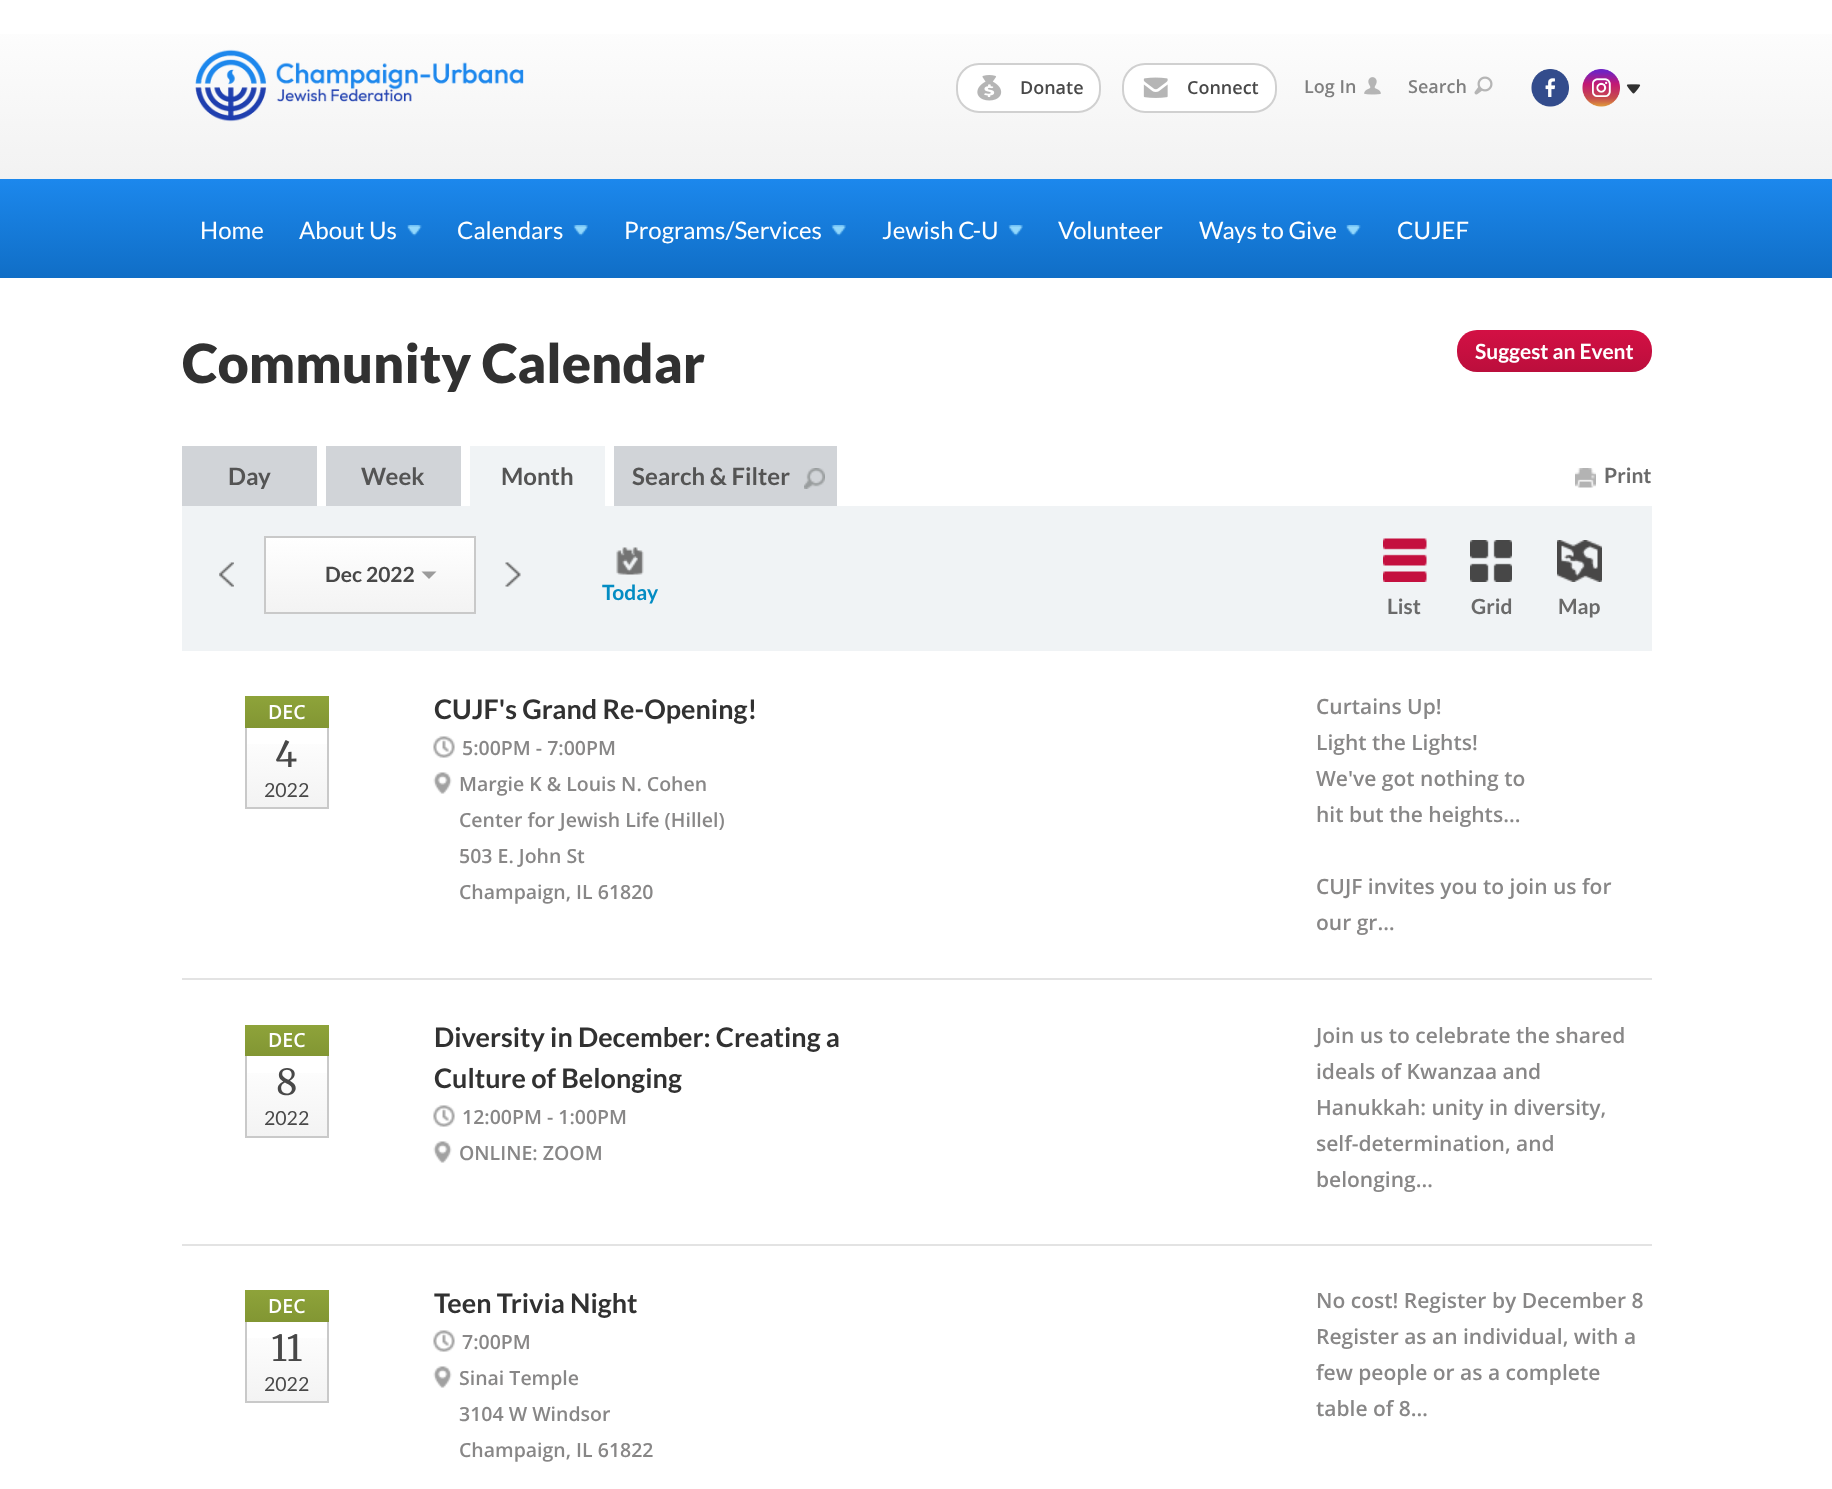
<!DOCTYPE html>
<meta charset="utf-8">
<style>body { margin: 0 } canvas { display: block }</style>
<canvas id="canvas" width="1832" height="1489"></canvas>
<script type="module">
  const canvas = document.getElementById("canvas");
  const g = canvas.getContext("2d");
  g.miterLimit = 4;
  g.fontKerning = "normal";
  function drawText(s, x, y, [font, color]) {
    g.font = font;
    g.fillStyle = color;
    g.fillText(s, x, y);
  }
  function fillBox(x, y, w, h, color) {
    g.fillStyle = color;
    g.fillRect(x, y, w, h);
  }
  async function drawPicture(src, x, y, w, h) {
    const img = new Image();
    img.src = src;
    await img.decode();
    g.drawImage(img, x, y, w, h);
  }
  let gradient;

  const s1 = ["600 18px Open Sans", "#484848"];
  const s2 = ["600 18px Open Sans", "#7F7F7F"];
  const s3 = ["24px Lato", "#FFFFFF"];
  const s4 = ["900 54px Lato", "#313131"];
  const s5 = ["bold 21px Lato", "#FFFFFF"];
  const s6 = ["bold 24px Lato", "#545454"];
  const s7 = ["bold 21px Lato", "#6A6A6A"];
  const s8 = ["bold 21px Lato", "#484848"];
  const s9 = ["bold 21px Lato", "#038CC3"];
  const s10 = ["600 19.5px Open Sans", "#FFFFFF"];
  const s11 = ["36px Merriweather", "#484848"];
  const s12 = ["19.5px Lato", "#484848"];
  const s13 = ["bold 27px Lato", "#313131"];
  const s14 = ["600 19.5px Open Sans", "#888787"];
  const s15 = ["600 21px Open Sans", "#888787"];

  fillBox(0, 0, 1832, 1489, "#FFFFFF");
  gradient = g.createLinearGradient(917, 0, 917, 179);
  gradient.addColorStop(0, "#FFFFFF");
  gradient.addColorStop(1, "#F2F2F2");
  g.fillStyle = gradient;
  g.fillRect(0, 34, 1832, 145);
  await drawPicture("pic1.png", 195, 49, 329, 73);
  g.fillStyle = "#FFFFFF";
  g.beginPath();
  g.roundRect(957, 64, 143, 48, 22);
  g.fill();
  g.strokeStyle = "#D0D0D0";
  g.lineWidth = 2;
  g.stroke();
  await drawPicture("pic2.png", 977, 75, 25, 26);
  drawText("Donate", 1020, 94, s1);
  g.fillStyle = "#FFFFFF";
  g.beginPath();
  g.roundRect(1123, 64, 153, 48, 22);
  g.fill();
  g.stroke();
  await drawPicture("pic3.png", 1143, 77, 25, 21);
  drawText("Connect", 1187, 94, s1);
  drawText("Log In", 1304, 93, s2);
  await drawPicture("pic4.png", 1364, 77, 17, 18);
  drawText("Search", 1408, 93, s2);
  await drawPicture("pic5.png", 1474, 76, 19, 19);
  await drawPicture("pic6.png", 1531, 69, 38, 38);
  await drawPicture("pic7.png", 1582, 69, 38, 38);
  await drawPicture("pic8.png", 1626, 84, 15, 10);
  gradient = g.createLinearGradient(917, 178, 917, 278);
  gradient.addColorStop(0, "#1C88ED");
  gradient.addColorStop(1, "#106EC6");
  g.fillStyle = gradient;
  g.fillRect(0, 179, 1832, 99);
  drawText("Home", 200, 239, s3);
  drawText("About Us", 299, 239, s3);
  await drawPicture("pic9.png", 407, 225, 15, 11);
  drawText("Calendars", 457, 239, s3);
  await drawPicture("pic10.png", 573, 225, 15, 11);
  drawText("Programs/Services", 624, 239, s3);
  await drawPicture("pic11.png", 831, 225, 15, 11);
  drawText("Jewish C-U", 882, 239, s3);
  await drawPicture("pic11.png", 1008, 225, 15, 11);
  drawText("Volunteer", 1058, 239, s3);
  drawText("Ways to Give", 1199, 239, s3);
  await drawPicture("pic9.png", 1346, 225, 15, 11);
  drawText("CUJEF", 1397, 239, s3);
  drawText("Community Calendar", 182, 383, s4);
  gradient = g.createLinearGradient(1554, 330, 1554, 372);
  gradient.addColorStop(0, "#D31044");
  gradient.addColorStop(1, "#BB0E3C");
  g.fillStyle = gradient;
  g.beginPath();
  g.roundRect(1457, 330, 195, 42, 20);
  g.fill();
  drawText("Suggest an Event", 1475, 359, s5);
  fillBox(182, 446, 135, 60, "#D1D4D8");
  drawText("Day", 228, 485, s6);
  fillBox(326, 446, 135, 60, "#D1D4D8");
  drawText("Week", 361, 485, s6);
  fillBox(470, 446, 135, 60, "#F0F3F5");
  drawText("Month", 501, 485, s6);
  fillBox(614, 446, 223, 60, "#D1D4D8");
  drawText("Search & Filter", 632, 485, s6);
  await drawPicture("pic12.png", 804, 468, 21, 21);
  await drawPicture("pic13.png", 1575, 468, 21, 20);
  drawText("Print", 1604, 483, s7);
  fillBox(182, 506, 1470, 145, "#F0F3F5");
  await drawPicture("pic14.png", 219, 562, 15, 25);
  await drawPicture("pic15.png", 505, 562, 16, 25);
  gradient = g.createLinearGradient(370, 537, 370, 612);
  gradient.addColorStop(0, "#FFFFFF");
  gradient.addColorStop(1, "#F3F3F3");
  g.fillStyle = gradient;
  g.fillRect(266, 538, 208, 74);
  g.strokeStyle = "#C9C9C9";
  g.strokeRect(265, 537, 210, 76);
  drawText("Dec 2022", 325, 582, s8);
  g.fillStyle = "#9B9B9B";
  g.beginPath();
  g.moveTo(421.5, 571.5);
  g.lineTo(436.5, 571.5);
  g.lineTo(429, 579);
  g.closePath();
  g.fill();
  await drawPicture("pic16.png", 616, 547, 28, 28);
  drawText("Today", 602, 600, s9);
  await drawPicture("pic17.png", 1383, 538, 44, 44);
  drawText("List", 1387, 614, s7);
  await drawPicture("pic18.png", 1470, 540, 42, 42);
  drawText("Grid", 1471, 614, s7);
  await drawPicture("pic19.png", 1557, 540, 45, 42);
  drawText("Map", 1558, 614, s7);
  fillBox(182, 978, 1470, 2, "#E3E3E3");
  gradient = g.createLinearGradient(287, 696, 287, 728);
  gradient.addColorStop(0, "#8EA33A");
  gradient.addColorStop(1, "#829633");
  g.fillStyle = gradient;
  g.fillRect(245, 696, 84, 32);
  drawText("DEC", 268, 719, s10);
  gradient = g.createLinearGradient(287, 728, 287, 807);
  gradient.addColorStop(0, "#FFFFFF");
  gradient.addColorStop(1, "#F3F3F3");
  g.fillStyle = gradient;
  g.fillRect(247, 744, 80, 63);
  fillBox(327, 728, 2, 81, "#C9C9C9");
  fillBox(245, 807, 84, 2, "#C9C9C9");
  fillBox(245, 728, 2, 81, "#C9C9C9");
  drawText("4", 275, 767, s11);
  drawText("2022", 264, 797, s12);
  drawText("CUJF's Grand Re-Opening!", 434, 719, s13);
  await drawPicture("pic20.png", 433, 736, 22, 22);
  drawText("5:00PM - 7:00PM", 462, 755, s14);
  await drawPicture("pic21.png", 433, 772, 19, 22);
  drawText("Margie K & Louis N. Cohen", 459, 791, s14);
  drawText("Center for Jewish Life (Hillel)", 459, 827, s14);
  drawText("503 E. John St", 459, 863, s14);
  drawText("Champaign, IL 61820", 459, 899, s14);
  drawText("Curtains Up!", 1316, 714, s15);
  drawText("Light the Lights!", 1316, 750, s15);
  drawText("We've got nothing to", 1316, 786, s15);
  drawText("hit but the heights...", 1316, 822, s15);
  drawText("CUJF invites you to join us for", 1316, 894, s15);
  drawText("our gr…", 1316, 930, s15);
  fillBox(182, 1244, 1470, 2, "#E3E3E3");
  gradient = g.createLinearGradient(287, 1025, 287, 1056);
  gradient.addColorStop(0, "#8EA33A");
  gradient.addColorStop(1, "#829633");
  g.fillStyle = gradient;
  g.fillRect(245, 1025, 84, 31);
  drawText("DEC", 268, 1047, s10);
  gradient = g.createLinearGradient(287, 1056, 287, 1136);
  gradient.addColorStop(0, "#FFFFFF");
  gradient.addColorStop(1, "#F3F3F3");
  g.fillStyle = gradient;
  g.fillRect(247, 1073, 80, 63);
  fillBox(327, 1056, 2, 81, "#C9C9C9");
  fillBox(245, 1136, 84, 2, "#C9C9C9");
  fillBox(245, 1056, 2, 81, "#C9C9C9");
  drawText("8", 276, 1095, s11);
  drawText("2022", 264, 1125, s12);
  drawText("Diversity in December: Creating a", 434, 1047, s13);
  drawText("Culture of Belonging", 434, 1088, s13);
  await drawPicture("pic20.png", 433, 1105, 22, 22);
  drawText("12:00PM - 1:00PM", 462, 1124, s14);
  await drawPicture("pic21.png", 433, 1141, 19, 22);
  drawText("ONLINE: ZOOM", 459, 1160, s14);
  drawText("Join us to celebrate the shared", 1316, 1043, s15);
  drawText("ideals of Kwanzaa and", 1316, 1079, s15);
  drawText("Hanukkah: unity in diversity,", 1316, 1115, s15);
  drawText("self-determination, and", 1316, 1151, s15);
  drawText("belonging…", 1316, 1187, s15);
  gradient = g.createLinearGradient(287, 1290, 287, 1322);
  gradient.addColorStop(0, "#8EA33A");
  gradient.addColorStop(1, "#829633");
  g.fillStyle = gradient;
  g.fillRect(245, 1290, 84, 32);
  drawText("DEC", 268, 1313, s10);
  gradient = g.createLinearGradient(287, 1322, 287, 1401);
  gradient.addColorStop(0, "#FFFFFF");
  gradient.addColorStop(1, "#F3F3F3");
  g.fillStyle = gradient;
  g.fillRect(247, 1338, 80, 63);
  fillBox(327, 1322, 2, 81, "#C9C9C9");
  fillBox(245, 1401, 84, 2, "#C9C9C9");
  fillBox(245, 1322, 2, 81, "#C9C9C9");
  drawText("11", 271, 1361, s11);
  drawText("2022", 264, 1391, s12);
  drawText("Teen Trivia Night", 434, 1313, s13);
  await drawPicture("pic20.png", 433, 1330, 22, 22);
  drawText("7:00PM", 462, 1349, s14);
  await drawPicture("pic21.png", 433, 1366, 19, 22);
  drawText("Sinai Temple", 459, 1385, s14);
  drawText("3104 W Windsor", 459, 1421, s14);
  drawText("Champaign, IL 61822", 459, 1457, s14);
  drawText("No cost! Register by December 8", 1316, 1308, s15);
  drawText("Register as an individual, with a", 1316, 1344, s15);
  drawText("few people or as a complete", 1316, 1380, s15);
  drawText("table of 8…", 1316, 1416, s15);
</script>
